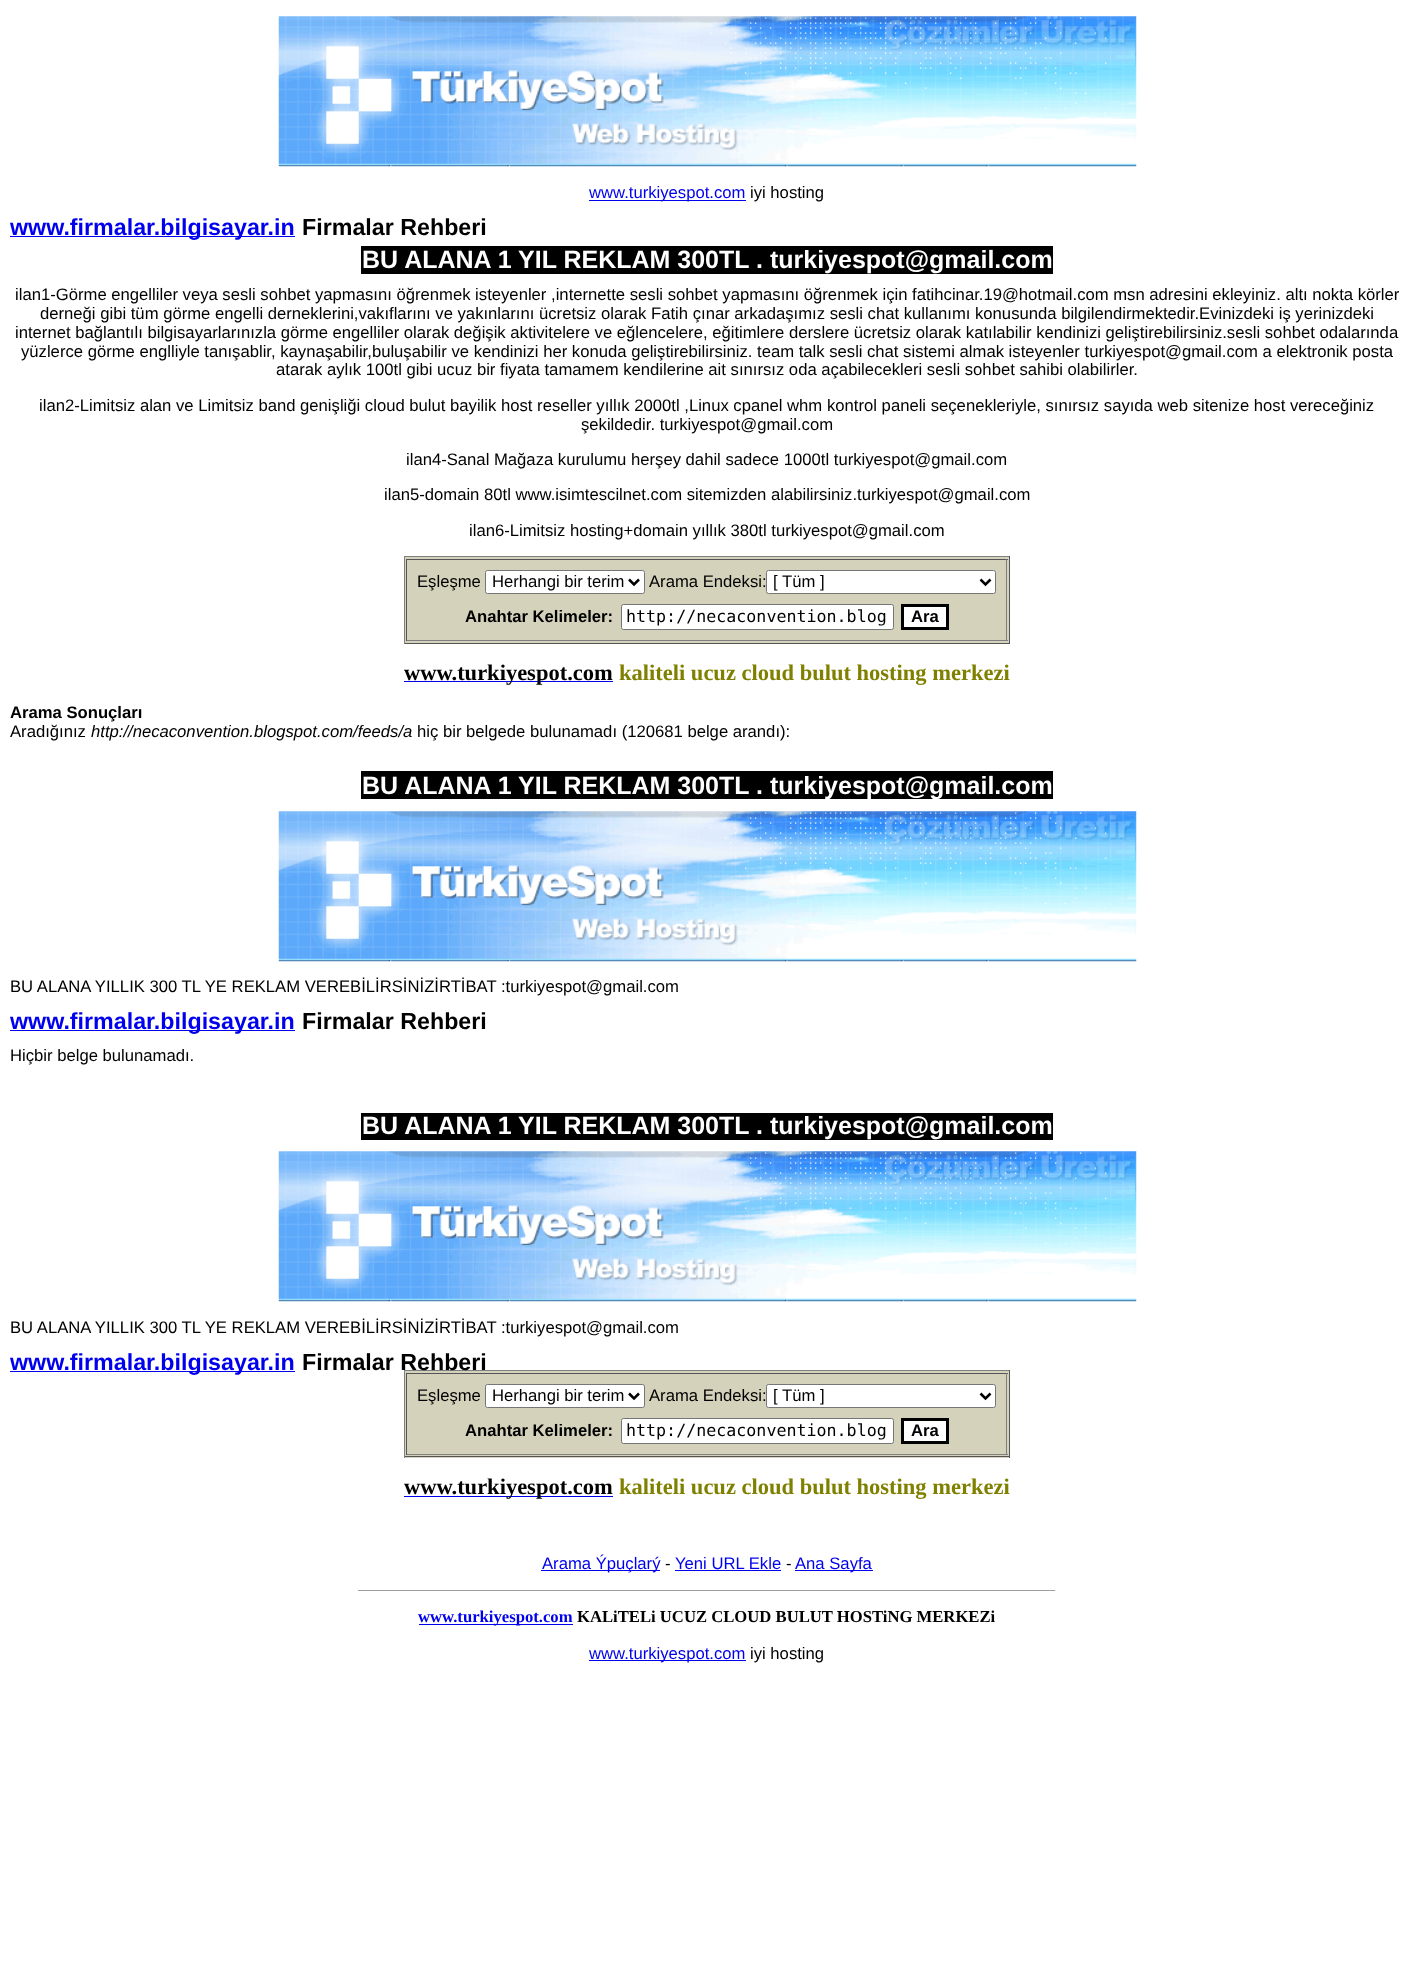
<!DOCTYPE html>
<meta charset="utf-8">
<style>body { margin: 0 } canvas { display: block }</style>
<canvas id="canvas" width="1413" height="1980"></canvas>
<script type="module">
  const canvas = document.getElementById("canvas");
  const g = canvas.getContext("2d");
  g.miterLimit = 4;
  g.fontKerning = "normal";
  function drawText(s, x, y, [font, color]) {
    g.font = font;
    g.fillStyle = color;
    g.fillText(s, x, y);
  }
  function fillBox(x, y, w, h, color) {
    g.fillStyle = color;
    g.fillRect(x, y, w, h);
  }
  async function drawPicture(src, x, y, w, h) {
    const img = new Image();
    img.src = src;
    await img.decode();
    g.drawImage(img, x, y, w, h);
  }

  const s1 = ["16.67px Liberation Sans", "#0000EE"];
  const s2 = ["16.67px Liberation Sans", "#000000"];
  const s3 = ["bold 23.25px Liberation Sans", "#0000EE"];
  const s4 = ["bold 23.25px Liberation Sans", "#000000"];
  const s5 = ["bold 25px Liberation Sans", "#FFFFFF"];
  const s6 = ["bold 16.67px Liberation Sans", "#000000"];
  const s7 = ["16.67px DejaVu Sans Mono", "#000000"];
  const s8 = ["bold 22.5px Liberation Serif", "#000000"];
  const s9 = ["bold 22.5px Liberation Serif", "#808000"];
  const s10 = ["italic 16.67px Liberation Sans", "#000000"];
  const s11 = ["bold 16.67px Liberation Serif", "#0000EE"];
  const s12 = ["bold 16.67px Liberation Serif", "#000000"];

  fillBox(0, 0, 1413, 1980, "#FFFFFF");
  await drawPicture("pic1.png", 278, 16, 859, 151);
  fillBox(589, 200, 157, 1, "#0000EE");
  drawText("www.turkiyespot.com", 589, 198, s1);
  drawText("iyi hosting", 750, 198, s2);
  fillBox(10, 236, 285, 1, "#0000EE");
  drawText("www.firmalar.bilgisayar.in", 10, 235, s3);
  drawText("Firmalar Rehberi", 302, 235, s4);
  fillBox(361, 246, 692, 28, "#000000");
  drawText("BU ALANA 1 YIL REKLAM 300TL . turkiyespot@gmail.com", 362, 268, s5);
  drawText("ilan1-Görme engelliler veya sesli sohbet yapmasını öğrenmek isteyenler ,internette sesli sohbet yapmasını öğrenmek için fatihcinar.19@hotmail.com msn adresini ekleyiniz. altı nokta körler", 15, 300, s2);
  drawText("derneği gibi tüm görme engelli derneklerini,vakıflarını ve yakınlarını ücretsiz olarak Fatih çınar arkadaşımız sesli chat kullanımı konusunda bilgilendirmektedir.Evinizdeki iş yerinizdeki", 40, 319, s2);
  drawText("internet bağlantılı bilgisayarlarınızla görme engelliler olarak değişik aktivitelere ve eğlencelere, eğitimlere derslere ücretsiz olarak katılabilir kendinizi geliştirebilirsiniz.sesli sohbet odalarında", 15, 338, s2);
  drawText("yüzlerce görme englliyle tanışablir, kaynaşabilir,buluşabilir ve kendinizi her konuda geliştirebilirsiniz. team talk sesli", 21, 357, s2);
  drawText("chat sistemi almak isteyenler turkiyespot@gmail.com a elektronik posta", 867, 357, s2);
  drawText("atarak aylık 100tl gibi ucuz bir fiyata tamamem kendilerine ait sınırsız oda açabilecekleri sesli sohbet sahibi olabilirler.", 276, 375, s2);
  drawText("ilan2-Limitsiz alan ve Limitsiz band genişliği cloud bulut bayilik host reseller yıllık 2000tl ,Linux cpanel whm", 39, 411, s2);
  drawText("kontrol paneli seçenekleriyle, sınırsız sayıda web sitenize host vereceğiniz", 827, 411, s2);
  drawText("şekildedir. turkiyespot@gmail.com", 581, 430, s2);
  drawText("ilan4-Sanal Mağaza kurulumu herşey dahil sadece 1000tl turkiyespot@gmail.com", 406, 465, s2);
  drawText("ilan5-domain 80tl www.isimtescilnet.com sitemizden alabilirsiniz.turkiyespot@gmail.com", 384, 500, s2);
  drawText("ilan6-Limitsiz hosting+domain yıllık 380tl turkiyespot@gmail.com", 469, 536, s2);
  fillBox(405, 557, 604, 86, "#D5D2BB");
  fillBox(404, 556, 606, 1, "#808080");
  fillBox(1009, 556, 1, 88, "#555555");
  fillBox(404, 643, 606, 1, "#555555");
  fillBox(404, 556, 1, 88, "#808080");
  fillBox(406, 559, 602, 1, "#555555");
  fillBox(1006, 559, 1, 82, "#808080");
  fillBox(406, 640, 602, 1, "#808080");
  fillBox(406, 559, 1, 82, "#555555");
  drawText("Eşleşme", 417, 587, s2);
  g.fillStyle = "#FFFFFF";
  g.beginPath();
  g.roundRect(485.5, 570.5, 159, 23, 2);
  g.fill();
  g.strokeStyle = "#767676";
  g.stroke();
  g.beginPath();
  g.moveTo(629, 579.5);
  g.lineTo(634, 584.5);
  g.lineTo(639, 579.5);
  g.strokeStyle = "#000000";
  g.lineWidth = 2.5;
  g.stroke();
  drawText("Herhangi bir terim", 492, 587, s2);
  drawText("Arama Endeksi:", 649, 587, s2);
  g.fillStyle = "#FFFFFF";
  g.beginPath();
  g.roundRect(766.5, 570.5, 229, 23, 2);
  g.fill();
  g.strokeStyle = "#767676";
  g.lineWidth = 1;
  g.stroke();
  g.beginPath();
  g.moveTo(980.5, 579.5);
  g.lineTo(985.5, 584.5);
  g.lineTo(990.5, 579.5);
  g.strokeStyle = "#000000";
  g.lineWidth = 2.5;
  g.stroke();
  drawText("[ Tüm ]", 773, 587, s2);
  drawText("Anahtar Kelimeler:", 465, 622, s6);
  g.fillStyle = "#FFFFFF";
  g.beginPath();
  g.roundRect(621.5, 604.5, 272, 25, 2);
  g.fill();
  g.strokeStyle = "#767676";
  g.lineWidth = 1;
  g.stroke();
  drawText("http://necaconvention.blog", 626, 622, s7);
  g.fillStyle = "#FFFFFF";
  g.beginPath();
  g.rect(902.5, 605.5, 45, 23);
  g.fill();
  g.strokeStyle = "#000000";
  g.lineWidth = 3;
  g.stroke();
  drawText("Ara", 911, 622, s6);
  fillBox(404, 681, 209, 1, "#0000EE");
  drawText("www.turkiyespot.com", 404, 680, s8);
  drawText("kaliteli ucuz cloud bulut hosting merkezi", 619, 680, s9);
  drawText("Arama Sonuçları", 10, 718, s6);
  drawText("Aradığınız", 10, 737, s2);
  drawText("http://necaconvention.blogspot.com/feeds/a", 91, 737, s10);
  drawText("hiç bir belgede bulunamadı (120681 belge arandı):", 417, 737, s2);
  fillBox(361, 771, 692, 28, "#000000");
  drawText("BU ALANA 1 YIL REKLAM 300TL . turkiyespot@gmail.com", 362, 794, s5);
  await drawPicture("pic1.png", 278, 811, 859, 151);
  drawText("BU ALANA YILLIK 300 TL YE REKLAM VEREBİLİRSİNİZİRTİBAT :turkiyespot@gmail.com", 10, 992, s2);
  fillBox(10, 1030, 285, 1, "#0000EE");
  drawText("www.firmalar.bilgisayar.in", 10, 1029, s3);
  drawText("Firmalar Rehberi", 302, 1029, s4);
  drawText("Hiçbir belge bulunamadı.", 10, 1061, s2);
  fillBox(361, 1113, 692, 27, "#000000");
  drawText("BU ALANA 1 YIL REKLAM 300TL . turkiyespot@gmail.com", 362, 1134, s5);
  await drawPicture("pic2.png", 278, 1151, 859, 151);
  drawText("BU ALANA YILLIK 300 TL YE REKLAM VEREBİLİRSİNİZİRTİBAT :turkiyespot@gmail.com", 10, 1333, s2);
  fillBox(10, 1371, 285, 1, "#0000EE");
  drawText("www.firmalar.bilgisayar.in", 10, 1370, s3);
  fillBox(404, 1370, 606, 1, "#808080");
  fillBox(405, 1371, 604, 87, "#D5D2BB");
  fillBox(1009, 1370, 1, 88, "#555555");
  fillBox(404, 1456, 606, 1, "#555555");
  fillBox(404, 1370, 1, 88, "#808080");
  drawText("Firmalar Rehberi", 302, 1370, s4);
  fillBox(406, 1373, 602, 1, "#555555");
  fillBox(1006, 1373, 1, 82, "#808080");
  fillBox(406, 1454, 602, 1, "#808080");
  fillBox(406, 1373, 1, 82, "#555555");
  drawText("Eşleşme", 417, 1401, s2);
  g.fillStyle = "#FFFFFF";
  g.beginPath();
  g.roundRect(485.5, 1384.5, 159, 23, 2);
  g.fill();
  g.strokeStyle = "#767676";
  g.lineWidth = 1;
  g.stroke();
  g.beginPath();
  g.moveTo(629, 1393.5);
  g.lineTo(634, 1398.5);
  g.lineTo(639, 1393.5);
  g.strokeStyle = "#000000";
  g.lineWidth = 2.5;
  g.stroke();
  drawText("Herhangi bir terim", 492, 1401, s2);
  drawText("Arama Endeksi:", 649, 1401, s2);
  g.fillStyle = "#FFFFFF";
  g.beginPath();
  g.roundRect(766.5, 1384.5, 229, 23, 2);
  g.fill();
  g.strokeStyle = "#767676";
  g.lineWidth = 1;
  g.stroke();
  g.beginPath();
  g.moveTo(980.5, 1393.5);
  g.lineTo(985.5, 1398.5);
  g.lineTo(990.5, 1393.5);
  g.strokeStyle = "#000000";
  g.lineWidth = 2.5;
  g.stroke();
  drawText("[ Tüm ]", 773, 1401, s2);
  drawText("Anahtar Kelimeler:", 465, 1436, s6);
  g.fillStyle = "#FFFFFF";
  g.beginPath();
  g.roundRect(621.5, 1418.5, 272, 25, 2);
  g.fill();
  g.strokeStyle = "#767676";
  g.lineWidth = 1;
  g.stroke();
  drawText("http://necaconvention.blog", 626, 1436, s7);
  g.fillStyle = "#FFFFFF";
  g.beginPath();
  g.rect(902.5, 1419.5, 45, 23);
  g.fill();
  g.strokeStyle = "#000000";
  g.lineWidth = 3;
  g.stroke();
  drawText("Ara", 911, 1436, s6);
  fillBox(404, 1496, 209, 1, "#0000EE");
  drawText("www.turkiyespot.com", 404, 1494, s8);
  drawText("kaliteli ucuz cloud bulut hosting merkezi", 619, 1494, s9);
  fillBox(541, 1570, 119, 1, "#0000EE");
  drawText("Arama Ýpuçlarý", 542, 1569, s1);
  drawText("-", 665, 1569, s2);
  drawText("Yeni URL Ekle", 675, 1569, s1);
  fillBox(675, 1570, 106, 1, "#0000EE");
  drawText("-", 786, 1569, s2);
  fillBox(795, 1570, 78, 1, "#0000EE");
  drawText("Ana Sayfa", 795, 1569, s1);
  fillBox(358, 1590, 698, 1, "#9F9F9F");
  fillBox(1055, 1590, 1, 1, "#EEEEEE");
  fillBox(419, 1624, 154, 1, "#0000EE");
  drawText("www.turkiyespot.com", 418, 1622, s11);
  drawText("KALiTELi UCUZ CLOUD BULUT HOSTiNG MERKEZi", 577, 1622, s12);
  fillBox(589, 1660, 157, 1, "#0000EE");
  drawText("www.turkiyespot.com", 589, 1659, s1);
  drawText("iyi hosting", 750, 1659, s2);
</script>
